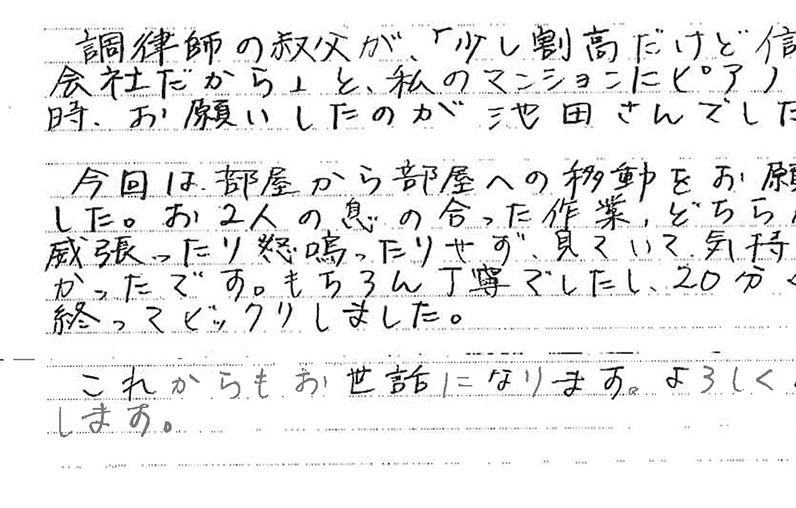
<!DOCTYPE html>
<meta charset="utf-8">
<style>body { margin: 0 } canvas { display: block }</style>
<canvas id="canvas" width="796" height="508"></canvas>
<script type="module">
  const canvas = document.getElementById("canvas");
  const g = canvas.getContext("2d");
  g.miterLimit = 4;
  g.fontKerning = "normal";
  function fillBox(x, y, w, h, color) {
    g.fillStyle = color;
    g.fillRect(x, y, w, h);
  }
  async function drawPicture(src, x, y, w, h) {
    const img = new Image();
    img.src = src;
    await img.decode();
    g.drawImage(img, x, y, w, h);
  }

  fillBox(0, 0, 796, 508, "#FFFFFF");
  await drawPicture("pic1.png", 0, 21, 796, 448);
</script>
